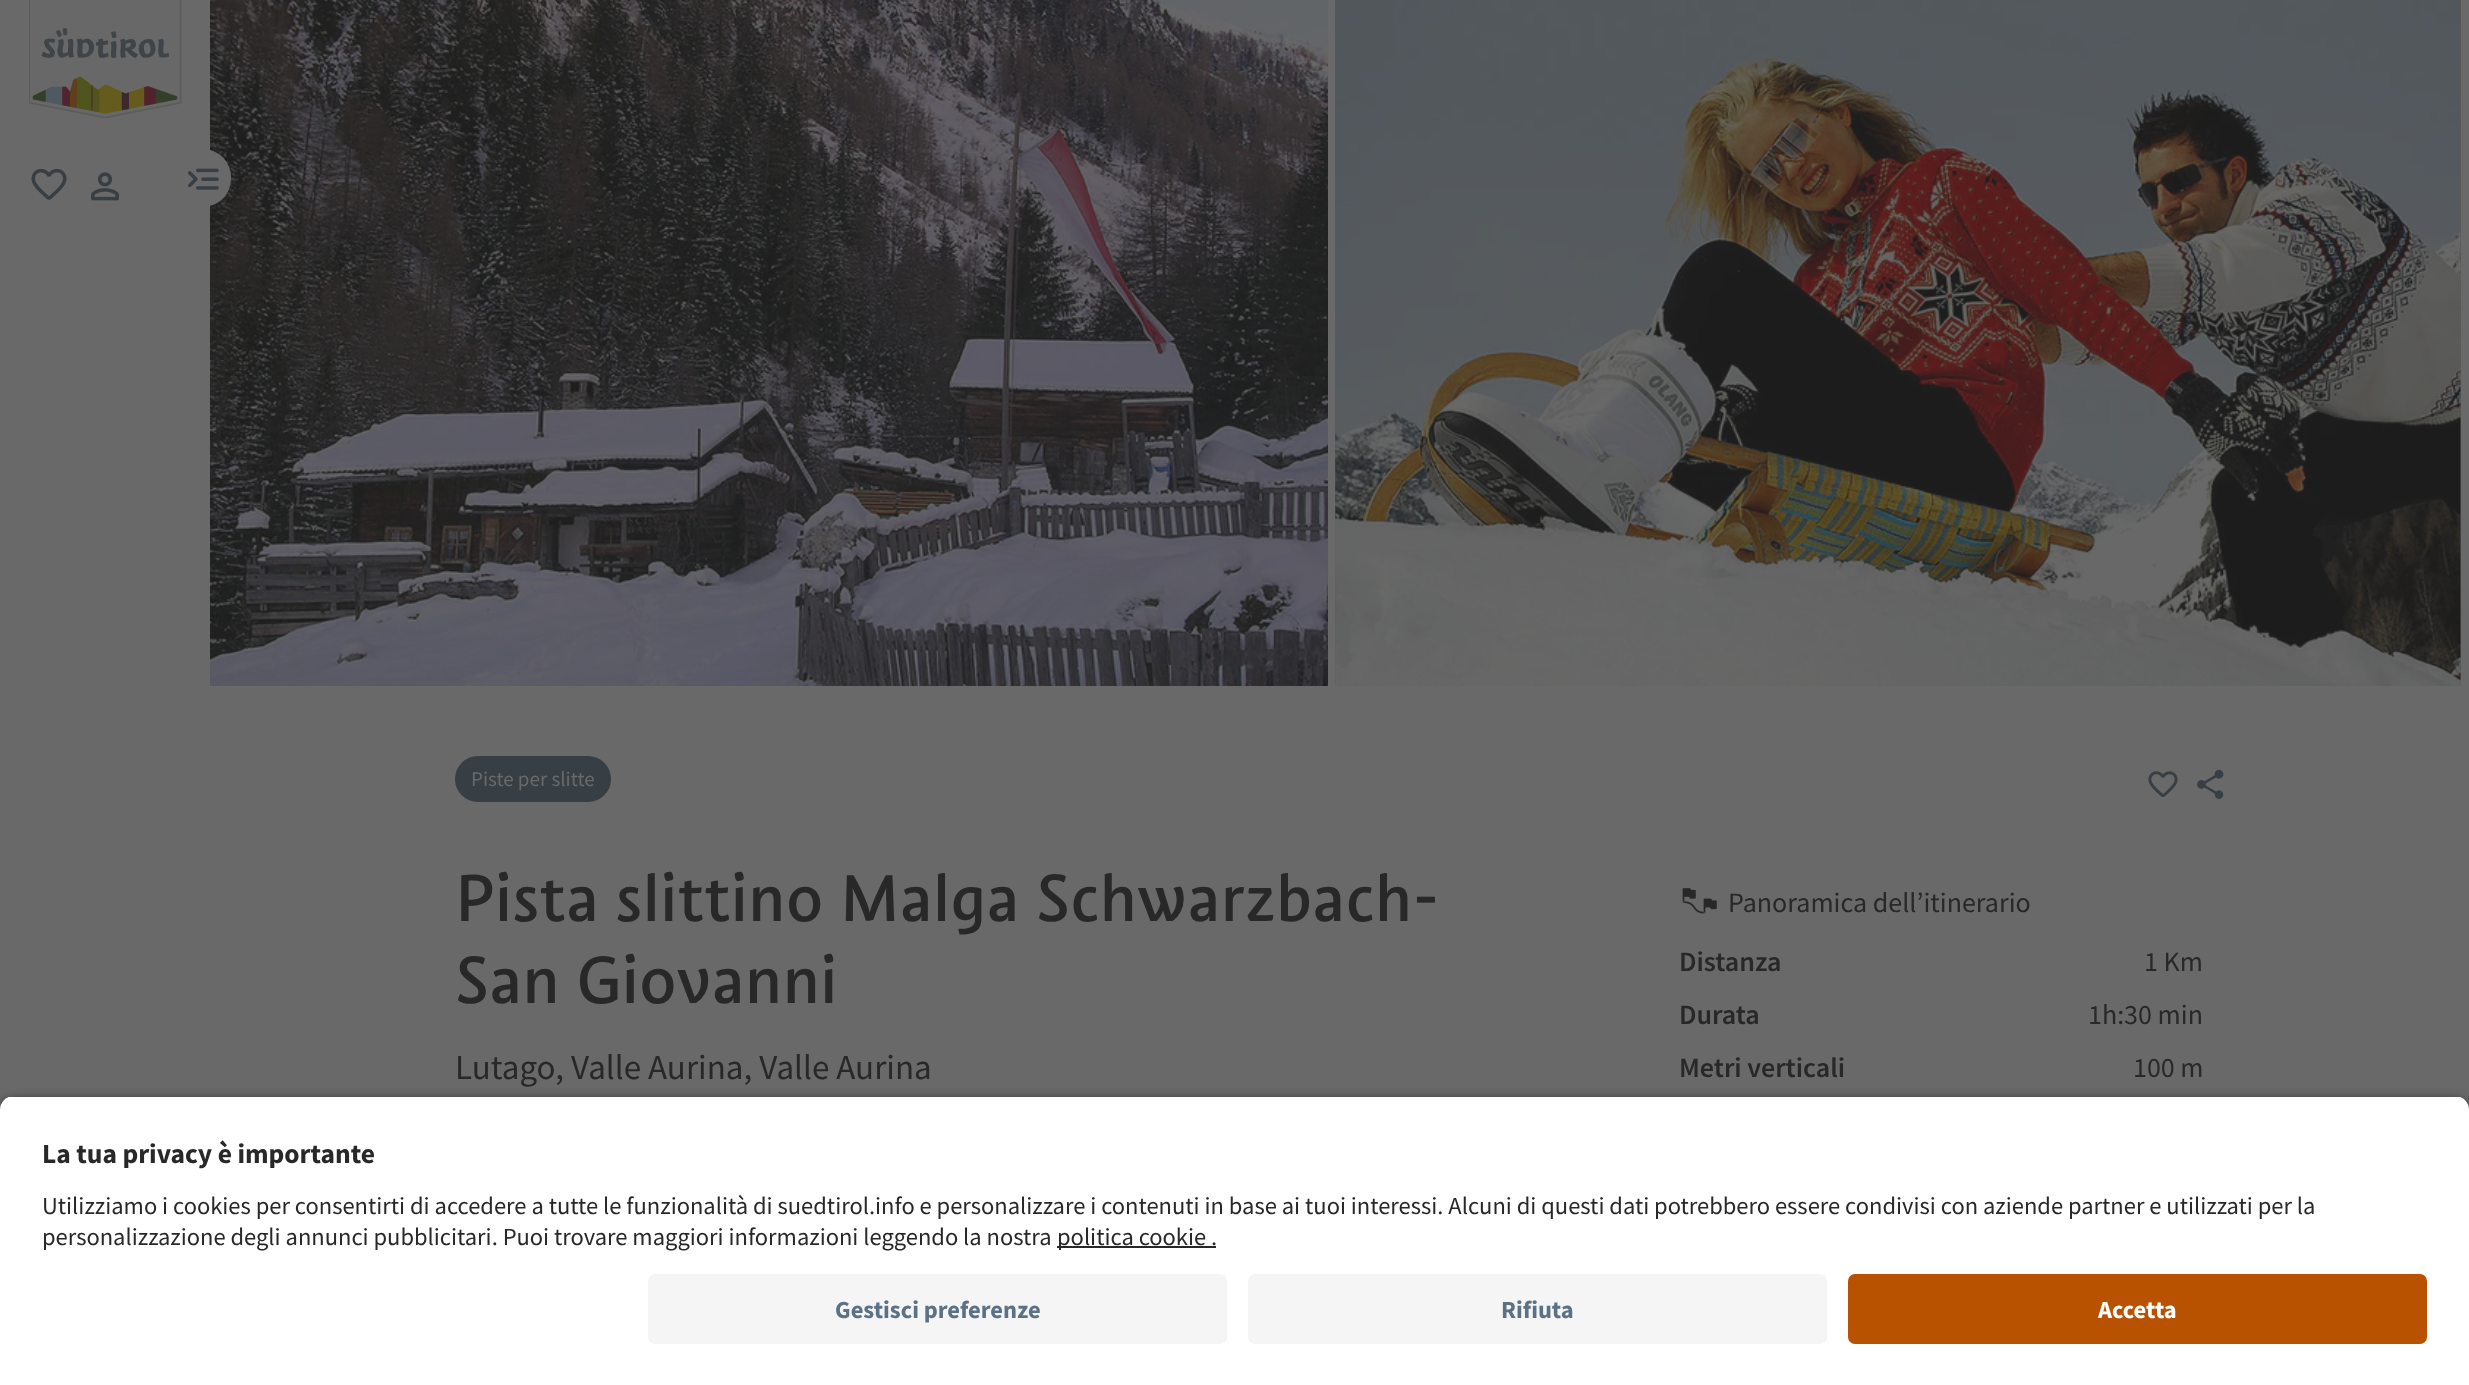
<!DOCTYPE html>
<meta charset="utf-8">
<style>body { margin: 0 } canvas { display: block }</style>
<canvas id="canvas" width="2469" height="1385"></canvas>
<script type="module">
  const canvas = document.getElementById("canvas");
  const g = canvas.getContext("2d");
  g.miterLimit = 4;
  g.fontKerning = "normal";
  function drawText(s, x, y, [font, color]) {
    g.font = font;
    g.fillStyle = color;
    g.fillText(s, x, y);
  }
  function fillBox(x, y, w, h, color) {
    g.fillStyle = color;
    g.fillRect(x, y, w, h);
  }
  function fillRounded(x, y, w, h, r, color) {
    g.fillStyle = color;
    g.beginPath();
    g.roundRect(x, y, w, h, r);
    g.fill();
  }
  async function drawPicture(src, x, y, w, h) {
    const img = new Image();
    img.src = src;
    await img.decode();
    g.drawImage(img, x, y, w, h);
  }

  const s1 = ["21px Source Sans Pro", "#696969"];
  const s2 = ["70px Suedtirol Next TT", "#282828"];
  const s3 = ["35px Source Sans Pro", "#282828"];
  const s4 = ["28px Source Sans Pro", "#282828"];
  const s5 = ["600 28px Source Sans Pro", "#282828"];
  const s6 = ["bold 27.5px Source Sans Pro", "#282828"];
  const s7 = ["24.5px Source Sans Pro", "#282828"];
  const s8 = ["bold 24.5px Source Sans Pro", "#5B7286"];
  const s9 = ["bold 24.5px Source Sans Pro", "#FFFFFF"];

  fillBox(0, 0, 2469, 1385, "#696969");
  await drawPicture("pic1.png", 29, 0, 153, 118);
  await drawPicture("pic2.png", 31, 168, 36, 32);
  await drawPicture("pic3.png", 91, 172, 28, 29);
  await drawPicture("pic5.png", 210, 0, 1118, 686);
  fillRounded(175, 149, 56, 58, 28, "#696969");
  await drawPicture("pic4.png", 188, 168, 31, 22);
  fillBox(1335, 0, 1126, 686, "#595959");
  await drawPicture("pic6.png", 1335, 0, 1126, 686);
  g.fillStyle = "#373E44";
  g.beginPath();
  g.roundRect(456, 757, 154, 44, 22);
  g.fill();
  g.strokeStyle = "#373E44";
  g.lineWidth = 2;
  g.stroke();
  drawText("Piste per slitte", 471, 786, s1);
  await drawPicture("pic7.png", 2148, 771, 30, 26);
  await drawPicture("pic8.png", 2197, 769, 27, 30);
  drawText("Pista slittino Malga Schwarzbach-", 455, 921, s2);
  drawText("San Giovanni", 455, 1003, s2);
  drawText("Lutago, Valle Aurina, Valle Aurina", 455, 1079, s3);
  await drawPicture("pic9.png", 1682, 888, 35, 26);
  drawText("Panoramica dell’itinerario", 1728, 912, s4);
  drawText("Distanza", 1679, 971, s5);
  drawText("1 Km", 2144, 971, s4);
  drawText("Durata", 1679, 1024, s5);
  drawText("1h:30 min", 2088, 1024, s4);
  drawText("Metri verticali", 1679, 1077, s5);
  drawText("100 m", 2133, 1077, s4);
  g.fillStyle = "rgba(0, 0, 0, 0.8)";
  g.filter = "blur(6px)";
  g.beginPath();
  g.roundRect(0, 1101, 2469, 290, 14);
  g.fill();
  g.filter = "none";
  g.save();
  g.beginPath();
  g.roundRect(0, 1096, 2469, 164, [14, 14, 0, 0]);
  g.clip();
  fillBox(0, 1097, 2469, 163, "#FFFFFF");
  g.restore();
  drawText("La tua privacy è importante", 42, 1163, s6);
  drawText("Utilizziamo i cookies per consentirti di accedere a tutte le funzionalità di suedtirol.info e personalizzare i contenuti in base ai tuoi interessi. Alcuni di questi dati potrebbero essere condivisi con aziende partner e utilizzati per la", 42, 1214, s7);
  drawText("personalizzazione degli annunci pubblicitari. Puoi trovare maggiori informazioni leggendo la nostra", 42, 1245, s7);
  fillBox(1057, 1246, 159, 2, "#282828");
  drawText("politica cookie .", 1057, 1245, s7);
  fillBox(0, 1260, 2469, 125, "#FFFFFF");
  fillRounded(648, 1274, 579, 70, 7, "#F5F5F5");
  drawText("Gestisci preferenze", 835, 1318, s8);
  fillRounded(1248, 1274, 579, 70, 7, "#F5F5F5");
  drawText("Rifiuta", 1501, 1318, s8);
  fillRounded(1848, 1274, 579, 70, 7, "#B95200");
  drawText("Accetta", 2098, 1318, s9);
</script>
